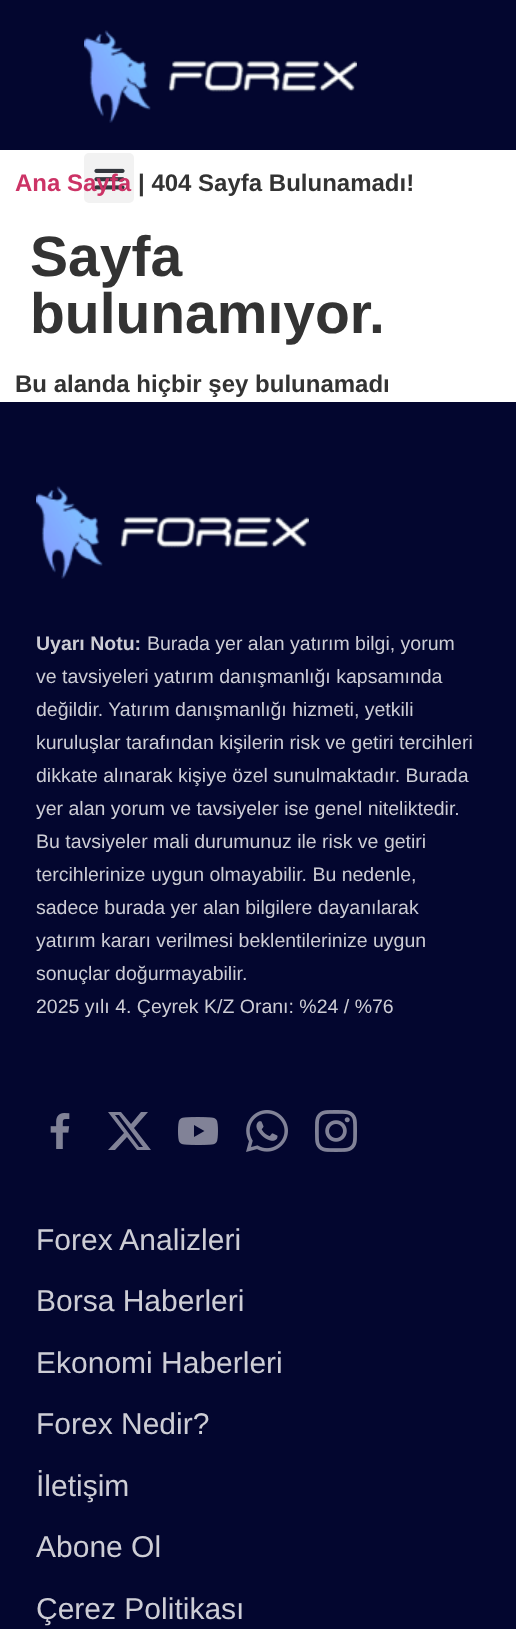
<!DOCTYPE html>
<meta charset="utf-8">
<style>body { margin: 0 } canvas { display: block }</style>
<canvas id="canvas" width="516" height="1629"></canvas>
<script type="module">
  const canvas = document.getElementById("canvas");
  const g = canvas.getContext("2d");
  g.miterLimit = 4;
  g.fontKerning = "normal";
  function drawText(s, x, y, [font, color]) {
    g.font = font;
    g.fillStyle = color;
    g.fillText(s, x, y);
  }
  function fillBox(x, y, w, h, color) {
    g.fillStyle = color;
    g.fillRect(x, y, w, h);
  }
  function fillRounded(x, y, w, h, r, color) {
    g.fillStyle = color;
    g.beginPath();
    g.roundRect(x, y, w, h, r);
    g.fill();
  }
  async function drawPicture(src, x, y, w, h) {
    const img = new Image();
    img.src = src;
    await img.decode();
    g.drawImage(img, x, y, w, h);
  }

  const s1 = ["bold 24px Liberation Sans", "#CC3366"];
  const s2 = ["bold 24px Liberation Sans", "#333333"];
  const s3 = ["bold 57px Liberation Sans", "#333333"];
  const s4 = ["bold 19.5px Liberation Sans", "#CDCDD5"];
  const s5 = ["19.5px Liberation Sans", "#CDCDD5"];
  const s6 = ["30px Liberation Sans", "#CDCDD5"];

  fillBox(0, 0, 516, 1629, "#FFFFFF");
  fillBox(0, 0, 516, 150, "#03062F");
  await drawPicture("pic1.png", 84, 30, 273, 93);
  fillRounded(84, 153, 50, 50, 5, "#F2F2F2");
  await drawPicture("pic2.png", 94, 168, 31, 22);
  drawText("Ana Sayfa", 15, 191, s1);
  drawText("| 404 Sayfa Bulunamadı!", 138, 191, s2);
  drawText("Sayfa", 30, 276, s3);
  drawText("bulunamıyor.", 30, 333, s3);
  drawText("Bu alanda hiçbir şey bulunamadı", 15, 392, s2);
  fillBox(0, 402, 516, 1227, "#03062F");
  await drawPicture("pic1.png", 36, 486, 273, 93);
  drawText("Uyarı Notu:", 36, 650, s4);
  drawText("Burada yer alan yatırım bilgi, yorum", 147, 650, s5);
  drawText("ve tavsiyeleri yatırım danışmanlığı kapsamında", 36, 683, s5);
  drawText("değildir. Yatırım danışmanlığı hizmeti, yetkili", 36, 716, s5);
  drawText("kuruluşlar tarafından kişilerin risk ve getiri tercihleri", 36, 749, s5);
  drawText("dikkate alınarak kişiye özel sunulmaktadır. Burada", 36, 782, s5);
  drawText("yer alan yorum ve tavsiyeler ise genel niteliktedir.", 36, 815, s5);
  drawText("Bu tavsiyeler mali durumunuz ile risk ve getiri", 36, 848, s5);
  drawText("tercihlerinize uygun olmayabilir. Bu nedenle,", 36, 881, s5);
  drawText("sadece burada yer alan bilgilere dayanılarak", 36, 914, s5);
  drawText("yatırım kararı verilmesi beklentilerinize uygun", 36, 947, s5);
  drawText("sonuçlar doğurmayabilir.", 36, 980, s5);
  drawText("2025 yılı 4. Çeyrek K/Z Oranı: %24 / %76", 36, 1013, s5);
  await drawPicture("pic3.png", 50, 1113, 20, 36);
  g.fillStyle = "#818297";
  g.beginPath();
  g.moveTo(141, 1112);
  g.lineTo(148, 1112);
  g.lineTo(134, 1128);
  g.lineTo(151, 1150);
  g.lineTo(137, 1150);
  g.lineTo(127, 1137);
  g.lineTo(115, 1150);
  g.lineTo(108, 1150);
  g.lineTo(124, 1133);
  g.lineTo(108, 1112);
  g.lineTo(121, 1112);
  g.lineTo(131, 1124);
  g.closePath();
  g.moveTo(139, 1147);
  g.lineTo(143, 1147);
  g.lineTo(119, 1115);
  g.lineTo(115, 1115);
  g.closePath();
  g.fill();
  await drawPicture("pic4.png", 178, 1117, 40, 28);
  await drawPicture("pic5.png", 246, 1110, 42, 42);
  await drawPicture("pic6.png", 315, 1110, 42, 42);
  drawText("Forex Analizleri", 36, 1250, s6);
  drawText("Borsa Haberleri", 36, 1311, s6);
  drawText("Ekonomi Haberleri", 36, 1373, s6);
  drawText("Forex Nedir?", 36, 1434, s6);
  drawText("İletişim", 36, 1496, s6);
  drawText("Abone Ol", 36, 1557, s6);
  drawText("Çerez Politikası", 36, 1619, s6);
</script>
